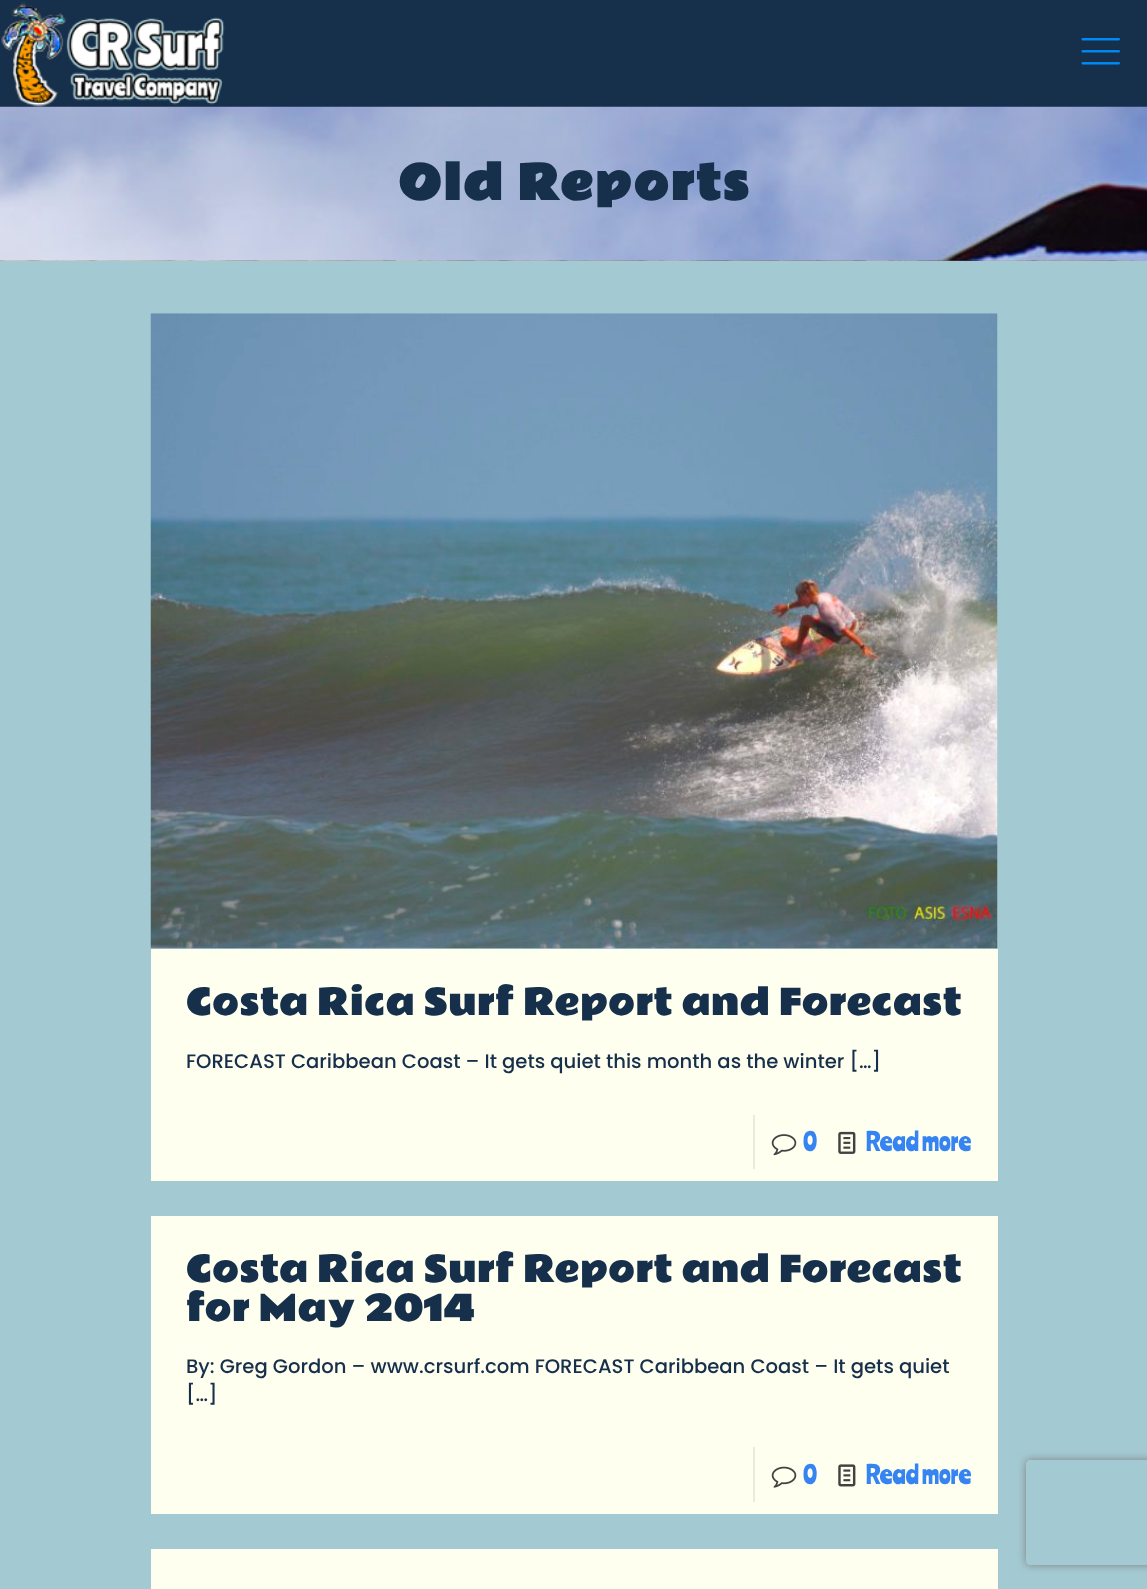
<!DOCTYPE html>
<meta charset="utf-8">
<style>body { margin: 0 } canvas { display: block }</style>
<canvas id="canvas" width="1147" height="1589"></canvas>
<script type="module">
  const canvas = document.getElementById("canvas");
  const g = canvas.getContext("2d");
  g.miterLimit = 4;
  g.fontKerning = "normal";
  function drawText(s, x, y, [font, color]) {
    g.font = font;
    g.fillStyle = color;
    g.fillText(s, x, y);
  }
  function fillBox(x, y, w, h, color) {
    g.fillStyle = color;
    g.fillRect(x, y, w, h);
  }
  async function drawPicture(src, x, y, w, h) {
    const img = new Image();
    img.src = src;
    await img.decode();
    g.drawImage(img, x, y, w, h);
  }

  const s1 = ["bold 45.5px Rammetto One", "#162F4A"];
  const s2 = ["35px Rammetto One", "#162F4A"];
  const s3 = ["500 19.6px Poppins", "#162F4A"];
  const s4 = ["24.5px Ranchers", "#3584F2"];

  fillBox(0, 0, 1147, 1589, "#FFFFFF");
  await drawPicture("pic1.png", 0, 260, 1147, 1);
  fillBox(0, 0, 1147, 107, "#162F4A");
  await drawPicture("pic2.png", 1, 2, 224, 105);
  await drawPicture("pic3.png", 1081, 38, 39, 27);
  await drawPicture("pic4.png", 0, 106, 1147, 155);
  g.letterSpacing = "1.75px";
  drawText("Old Reports", 398, 200, s1);
  fillBox(0, 261, 1147, 1328, "#A3CAD3");
  await drawPicture("pic5.png", 150, 313, 848, 636);
  fillBox(151, 949, 847, 232, "#FFFFF0");
  g.letterSpacing = "0px";
  drawText("Costa Rica Surf Report and Forecast", 186, 1015, s2);
  drawText("FORECAST Caribbean Coast – It gets quiet this month as the winter […]", 186, 1068, s3);
  fillBox(753, 1115, 2, 54, "#EBEBDD");
  await drawPicture("pic6.png", 771, 1134, 26, 22);
  drawText("0", 803, 1151, s4);
  await drawPicture("pic7.png", 838, 1131, 18, 23);
  drawText("Read more", 866, 1151, s4);
  fillBox(151, 1216, 847, 298, "#FFFFF0");
  drawText("Costa Rica Surf Report and Forecast", 186, 1282, s2);
  drawText("for May 2014", 186, 1321, s2);
  drawText("By: Greg Gordon – www.crsurf.com FORECAST Caribbean Coast – It gets quiet", 186, 1373, s3);
  drawText("[…]", 186, 1401, s3);
  fillBox(753, 1447, 2, 55, "#EBEBDD");
  await drawPicture("pic8.png", 771, 1466, 26, 22);
  drawText("0", 803, 1484, s4);
  await drawPicture("pic9.png", 838, 1464, 18, 23);
  drawText("Read more", 866, 1484, s4);
  fillBox(151, 1549, 847, 40, "#FFFFF0");
  g.save();
  g.beginPath();
  g.moveTo(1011, 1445);
  g.lineTo(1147, 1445);
  g.lineTo(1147, 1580);
  g.lineTo(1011, 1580);
  g.closePath();
  g.moveTo(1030, 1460);
  g.lineTo(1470, 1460);
  g.bezierCurveTo(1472, 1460, 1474, 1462, 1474, 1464);
  g.lineTo(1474, 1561);
  g.bezierCurveTo(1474, 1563, 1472, 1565, 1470, 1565);
  g.lineTo(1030, 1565);
  g.bezierCurveTo(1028, 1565, 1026, 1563, 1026, 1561);
  g.lineTo(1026, 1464);
  g.bezierCurveTo(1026, 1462, 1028, 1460, 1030, 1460);
  g.closePath();
  g.clip("evenodd");
  g.fillStyle = "#808080";
  g.filter = "blur(4.5px)";
  g.beginPath();
  g.roundRect(1026, 1460, 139, 105, 4);
  g.fill();
  g.filter = "none";
  g.restore();
</script>
